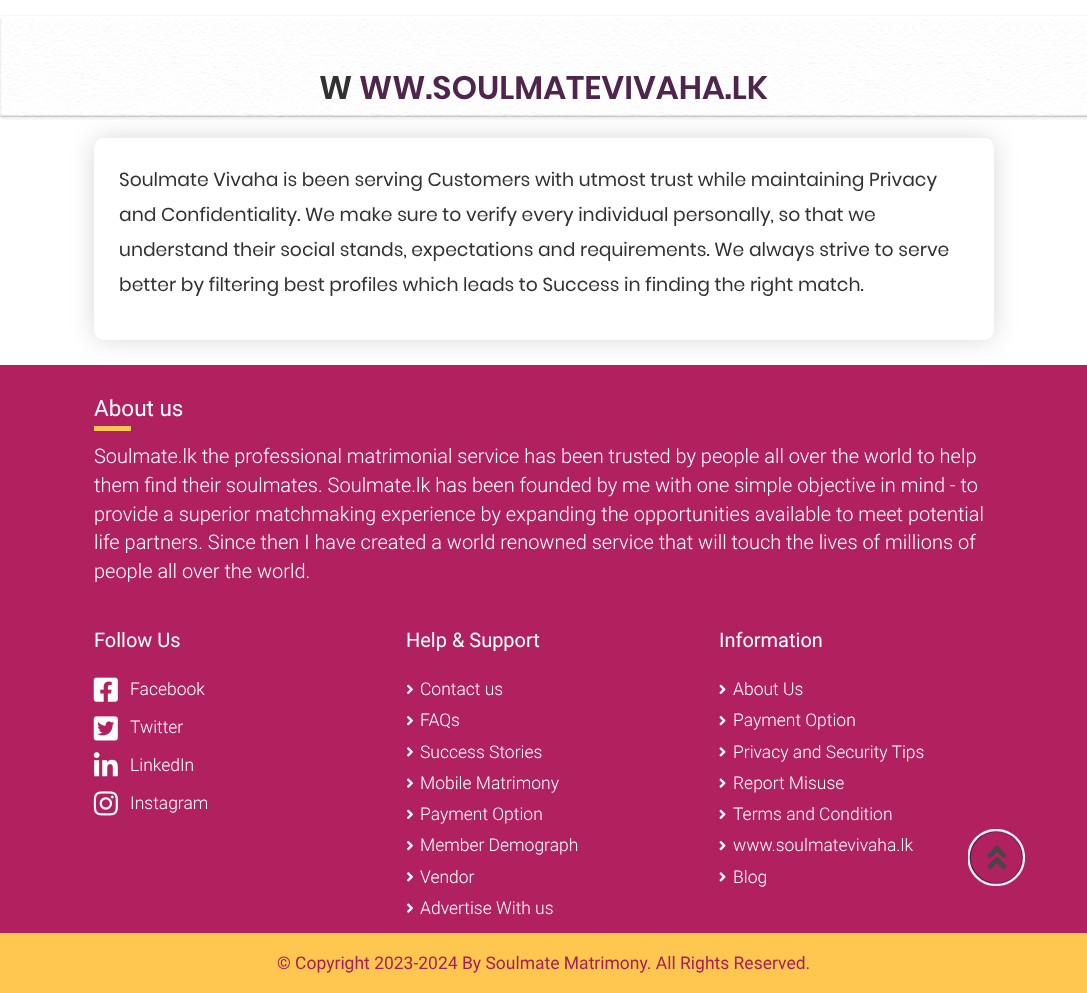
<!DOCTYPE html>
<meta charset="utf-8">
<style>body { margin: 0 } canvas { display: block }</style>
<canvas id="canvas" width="1087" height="993"></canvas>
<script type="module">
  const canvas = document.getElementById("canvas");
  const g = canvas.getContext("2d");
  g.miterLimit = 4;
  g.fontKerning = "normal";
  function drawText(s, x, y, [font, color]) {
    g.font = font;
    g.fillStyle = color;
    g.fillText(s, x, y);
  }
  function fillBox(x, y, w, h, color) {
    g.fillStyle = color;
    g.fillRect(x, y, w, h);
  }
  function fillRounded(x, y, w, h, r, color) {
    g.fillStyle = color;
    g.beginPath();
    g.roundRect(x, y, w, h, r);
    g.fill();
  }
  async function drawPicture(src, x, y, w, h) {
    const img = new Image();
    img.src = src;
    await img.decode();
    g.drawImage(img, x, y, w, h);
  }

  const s1 = ["600 32.5px Poppins", "#313131"];
  const s2 = ["600 32.5px Poppins", "#50254D"];
  const s3 = ["18.75px Poppins", "#313131"];
  const s4 = ["22.5px Roboto", "#FFFFFF"];
  const s5 = ["300 20px Roboto", "#FFFFFF"];
  const s6 = ["20px Roboto", "#FFFFFF"];
  const s7 = ["300 17.5px Roboto", "#FFFFFF"];
  const s8 = ["17.5px Roboto", "#A61E58"];

  fillBox(0, 0, 1087, 993, "#FFFFFF");
  await drawPicture("pic1.png", 0, 15, 1087, 105);
  drawText("W", 319, 99, s1);
  drawText("WW.SOULMATEVIVAHA.LK", 359, 99, s2);
  fillBox(0, 365, 1087, 568, "#B1205F");
  g.fillStyle = "rgba(0, 0, 0, 0.15)";
  g.filter = "blur(12.5px)";
  g.beginPath();
  g.roundRect(94, 138, 900, 202, 10);
  g.fill();
  g.filter = "none";
  fillRounded(94, 138, 900, 202, 10, "#FFFFFF");
  drawText("Soulmate Vivaha is been serving Customers with utmost trust while maintaining Privacy", 119, 186, s3);
  drawText("and Confidentiality. We make sure to verify every individual personally, so that we", 119, 221, s3);
  drawText("understand their social stands, expectations and requirements. We always strive to serve", 119, 256, s3);
  drawText("better by filtering best profiles which leads to Success in finding the right match.", 119, 291, s3);
  drawText("About us", 94, 416, s4);
  fillBox(94, 426, 37, 5, "#FFC750");
  drawText("Soulmate.lk the professional matrimonial service has been trusted by people all over the world to help", 94, 463, s5);
  drawText("them find their soulmates. Soulmate.lk has been founded by me with one simple objective in mind - to", 94, 492, s5);
  drawText("provide a superior matchmaking experience by expanding the opportunities available to meet potential", 94, 521, s5);
  drawText("life partners. Since then I have created a world renowned service that will touch the lives of millions of", 94, 549, s5);
  drawText("people all over the world.", 94, 578, s5);
  drawText("Follow Us", 94, 647, s6);
  await drawPicture("pic2.png", 93, 677, 25, 25);
  drawText("Facebook", 130, 695, s7);
  await drawPicture("pic3.png", 93, 716, 25, 25);
  drawText("Twitter", 130, 733, s7);
  await drawPicture("pic4.png", 93, 752, 25, 25);
  drawText("LinkedIn", 130, 771, s7);
  await drawPicture("pic5.png", 93, 791, 25, 25);
  drawText("Instagram", 130, 809, s7);
  drawText("Help & Support", 406, 647, s6);
  await drawPicture("pic6.png", 407, 684, 6, 10);
  drawText("Contact us", 420, 695, s7);
  await drawPicture("pic7.png", 407, 716, 6, 10);
  drawText("FAQs", 420, 726, s7);
  await drawPicture("pic8.png", 407, 747, 6, 10);
  drawText("Success Stories", 420, 758, s7);
  await drawPicture("pic9.png", 407, 778, 6, 10);
  drawText("Mobile Matrimony", 420, 789, s7);
  await drawPicture("pic6.png", 407, 809, 6, 10);
  drawText("Payment Option", 420, 820, s7);
  await drawPicture("pic7.png", 407, 841, 6, 10);
  drawText("Member Demograph", 420, 851, s7);
  await drawPicture("pic8.png", 407, 872, 6, 10);
  drawText("Vendor", 420, 883, s7);
  await drawPicture("pic9.png", 407, 903, 6, 10);
  drawText("Advertise With us", 420, 914, s7);
  drawText("Information", 719, 647, s6);
  await drawPicture("pic10.png", 719, 684, 7, 10);
  drawText("About Us", 733, 695, s7);
  await drawPicture("pic11.png", 719, 716, 7, 10);
  drawText("Payment Option", 733, 726, s7);
  await drawPicture("pic12.png", 719, 747, 7, 10);
  drawText("Privacy and Security Tips", 733, 758, s7);
  await drawPicture("pic13.png", 719, 778, 7, 10);
  drawText("Report Misuse", 733, 789, s7);
  await drawPicture("pic10.png", 719, 809, 7, 10);
  drawText("Terms and Condition", 733, 820, s7);
  await drawPicture("pic11.png", 719, 841, 7, 10);
  drawText("www.soulmatevivaha.lk", 733, 851, s7);
  await drawPicture("pic12.png", 719, 872, 7, 10);
  drawText("Blog", 733, 883, s7);
  g.beginPath();
  g.arc(996.5, 857.5, 27, 0, Math.PI * 2);
  g.strokeStyle = "#50254D";
  g.lineWidth = 3;
  g.stroke();
  g.save();
  g.beginPath();
  g.rect(968, 829, 57, 57);
  g.clip();
  g.beginPath();
  g.moveTo(996, 830);
  g.bezierCurveTo(1011.5, 830, 1024, 842, 1024, 857.5);
  g.bezierCurveTo(1024, 873, 1011.5, 885, 996, 885);
  g.bezierCurveTo(981, 885, 968.5, 873, 968.5, 857.5);
  g.bezierCurveTo(968.5, 842, 981, 830, 996, 830);
  g.strokeStyle = "#ECEDF3";
  g.lineWidth = 2.3;
  g.stroke();
  g.restore();
  await drawPicture("pic14.png", 987, 845, 20, 25);
  fillBox(0, 933, 1087, 60, "#FFC750");
  drawText("© Copyright 2023-2024 By Soulmate Matrimony. All Rights Reserved.", 277, 969, s8);
</script>
